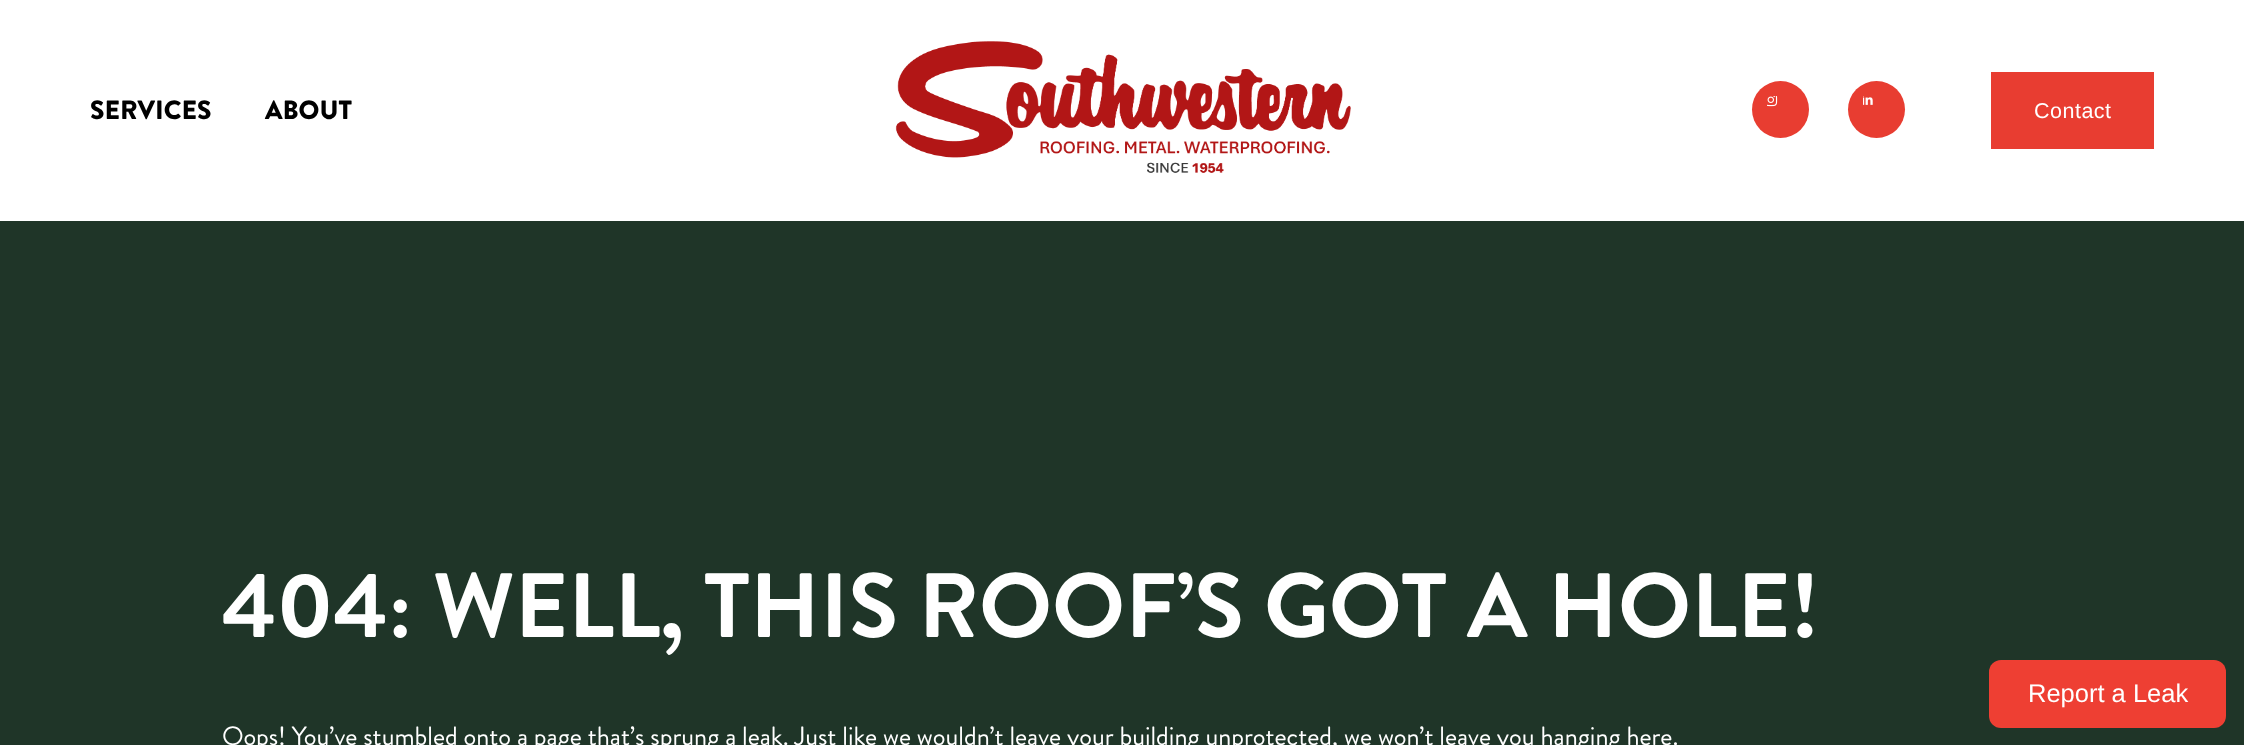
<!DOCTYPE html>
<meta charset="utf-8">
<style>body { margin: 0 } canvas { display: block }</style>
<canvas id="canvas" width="2244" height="745"></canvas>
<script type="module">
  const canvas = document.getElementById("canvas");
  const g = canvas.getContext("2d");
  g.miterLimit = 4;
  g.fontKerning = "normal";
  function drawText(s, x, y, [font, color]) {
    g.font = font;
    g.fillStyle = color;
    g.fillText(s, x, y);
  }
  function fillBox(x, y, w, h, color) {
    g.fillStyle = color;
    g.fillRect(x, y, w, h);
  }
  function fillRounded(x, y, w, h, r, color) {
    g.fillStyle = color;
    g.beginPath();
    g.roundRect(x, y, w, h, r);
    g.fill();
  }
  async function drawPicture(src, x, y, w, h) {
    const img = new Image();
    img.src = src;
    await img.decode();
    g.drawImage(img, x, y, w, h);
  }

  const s1 = ["900 26.4px Brandon Grotesque", "#000000"];
  const s2 = ["21.5px Liberation Sans", "#FFFFFF"];
  const s3 = ["bold 91.25px Brandon Grotesque", "#FFFFFF"];
  const s4 = ["26.4px Brandon Grotesque", "#FFFFFF"];
  const s5 = ["25.5px Liberation Sans", "#FFFFFF"];

  fillBox(0, 0, 2244, 745, "#1F3528");
  fillBox(0, 0, 2244, 221, "#FFFFFF");
  drawText("SERVICES", 90, 119, s1);
  drawText("ABOUT", 265, 119, s1);
  await drawPicture("pic1.png", 895, 41, 456, 132);
  g.fillStyle = "#E83D31";
  g.beginPath();
  g.arc(1780.5, 109.5, 28.5, 0, Math.PI * 2);
  g.fill();
  await drawPicture("pic2.png", 1767, 96, 11, 11);
  g.beginPath();
  g.arc(1876.5, 109.5, 28.5, 0, Math.PI * 2);
  g.fill();
  await drawPicture("pic3.png", 1863, 96, 10, 9);
  fillBox(1991, 72, 163, 77, "#E83D31");
  g.letterSpacing = "0.5px";
  drawText("Contact", 2034, 118, s2);
  g.letterSpacing = "0px";
  drawText("404: WELL, THIS ROOF’S GOT A HOLE!", 222, 637, s3);
  drawText("Oops! You’ve stumbled onto a page that’s sprung a leak. Just like we wouldn’t leave your building unprotected, we won’t leave you hanging here.", 222, 745, s4);
  fillRounded(1989, 660, 237, 68, 12, "#EE3F33");
  drawText("Report a Leak", 2028, 702, s5);
</script>
